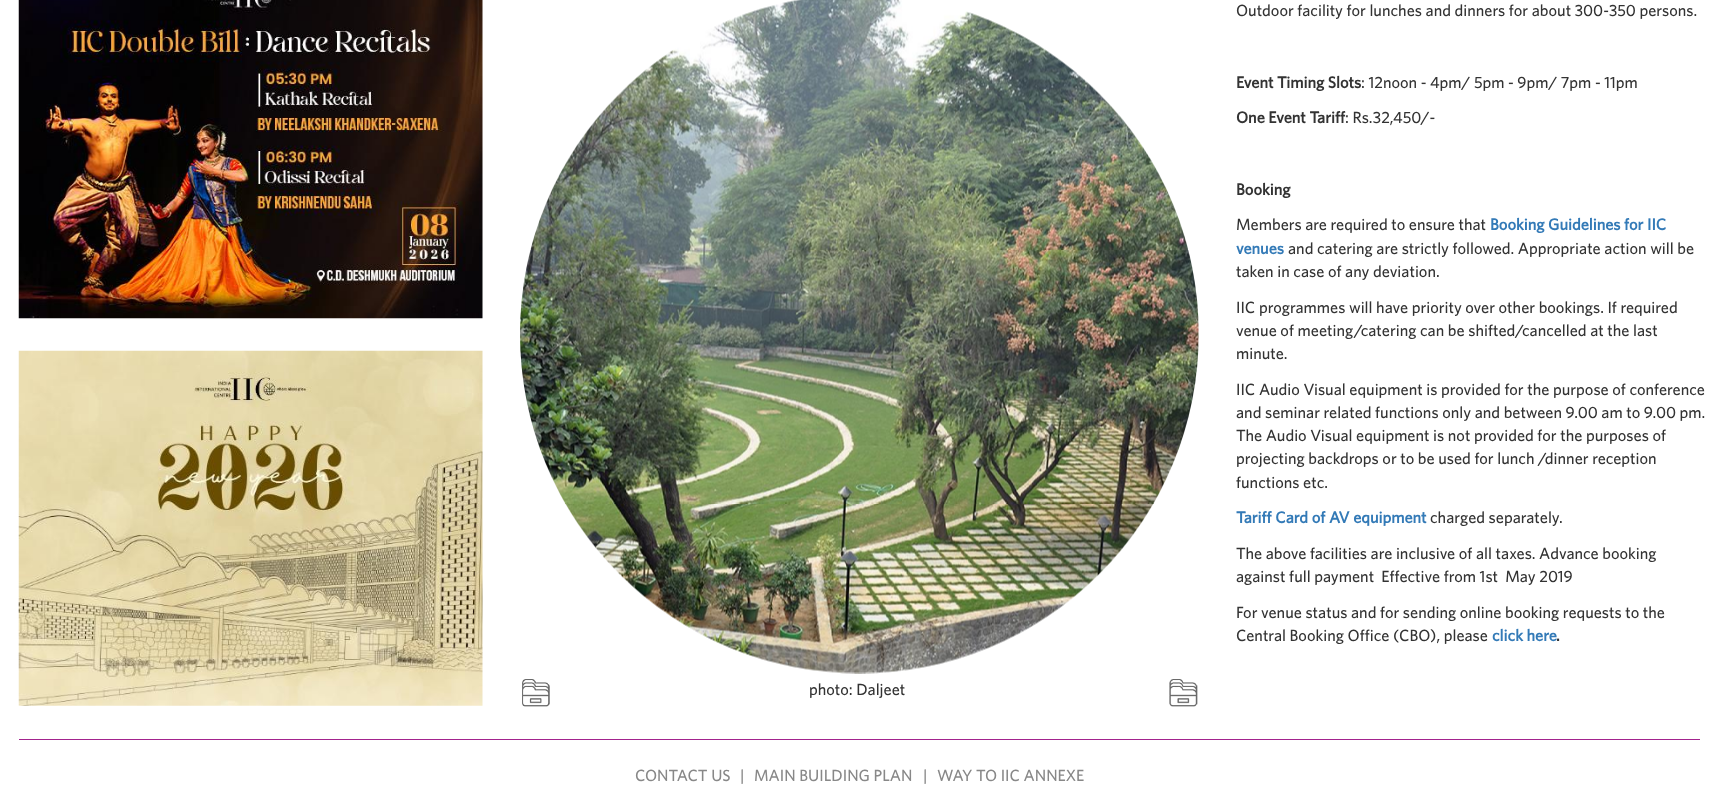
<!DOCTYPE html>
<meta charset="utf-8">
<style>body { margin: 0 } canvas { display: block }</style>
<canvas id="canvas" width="1718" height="812"></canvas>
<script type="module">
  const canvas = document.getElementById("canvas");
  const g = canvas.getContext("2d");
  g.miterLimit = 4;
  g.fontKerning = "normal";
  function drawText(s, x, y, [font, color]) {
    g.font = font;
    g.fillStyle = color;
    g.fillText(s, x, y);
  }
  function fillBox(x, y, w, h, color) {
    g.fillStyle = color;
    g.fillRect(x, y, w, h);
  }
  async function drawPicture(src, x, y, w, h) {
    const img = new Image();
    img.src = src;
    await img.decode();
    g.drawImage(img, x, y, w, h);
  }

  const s1 = ["500 16.25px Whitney", "#333333"];
  const s2 = ["bold 16.25px Whitney", "#333333"];
  const s3 = ["bold 16.25px Whitney", "#337AB7"];
  const s4 = ["500 16.25px Whitney", "#888888"];

  fillBox(0, 0, 1718, 812, "#FFFFFF");
  await drawPicture("pic1.png", 18, 0, 465, 319);
  await drawPicture("pic2.png", 18, 350, 465, 356);
  drawText("Outdoor facility for lunches and dinners for about 300-350 persons.", 1236, 16, s1);
  drawText("Event Timing Slots", 1236, 88, s2);
  drawText(": 12noon - 4pm/ 5pm - 9pm/ 7pm - 11pm", 1361, 88, s1);
  drawText("One Event Tariff", 1236, 123, s2);
  drawText(": Rs.32,450/-", 1345, 123, s1);
  drawText("Booking", 1236, 195, s2);
  drawText("Members are required to ensure that", 1236, 230, s1);
  drawText("Booking Guidelines for IIC", 1490, 230, s3);
  drawText("venues", 1236, 254, s3);
  drawText("and catering are strictly followed. Appropriate action will be", 1288, 254, s1);
  drawText("taken in case of any deviation.", 1236, 277, s1);
  drawText("IIC programmes will have priority over other bookings. If required", 1236, 313, s1);
  drawText("venue of meeting/catering can be shifted/cancelled at the last", 1236, 336, s1);
  drawText("minute.", 1236, 359, s1);
  drawText("IIC Audio Visual equipment is provided for the purpose of conference", 1236, 395, s1);
  drawText("and seminar related functions only and between 9.00 am to 9.00 pm.", 1236, 418, s1);
  drawText("The Audio Visual equipment is not provided for the purposes of", 1236, 441, s1);
  drawText("projecting backdrops or to be used for lunch /dinner reception", 1236, 464, s1);
  drawText("functions etc.", 1236, 488, s1);
  drawText("Tariff Card of AV equipment", 1236, 523, s3);
  drawText("charged separately.", 1430, 523, s1);
  drawText("The above facilities are inclusive of all taxes. Advance booking", 1236, 559, s1);
  drawText("against full payment  Effective from 1st  May 2019", 1236, 582, s1);
  drawText("For venue status and for sending online booking requests to the", 1236, 618, s1);
  drawText("Central Booking Office (CBO), please", 1236, 641, s1);
  drawText("click here", 1492, 641, s3);
  drawText(".", 1556, 641, s2);
  await drawPicture("pic3.png", 522, 679, 28, 28);
  await drawPicture("pic4.png", 520, 0, 679, 674);
  drawText("photo: Daljeet", 809, 695, s1);
  await drawPicture("pic5.png", 1169, 679, 29, 28);
  fillBox(19, 739, 1681, 1, "#A3238E");
  drawText("CONTACT US", 635, 781, s4);
  drawText("|", 740, 781, s4);
  drawText("MAIN BUILDING PLAN", 754, 781, s4);
  drawText("|", 923, 781, s4);
  drawText("WAY TO IIC ANNEXE", 937, 781, s4);
</script>
